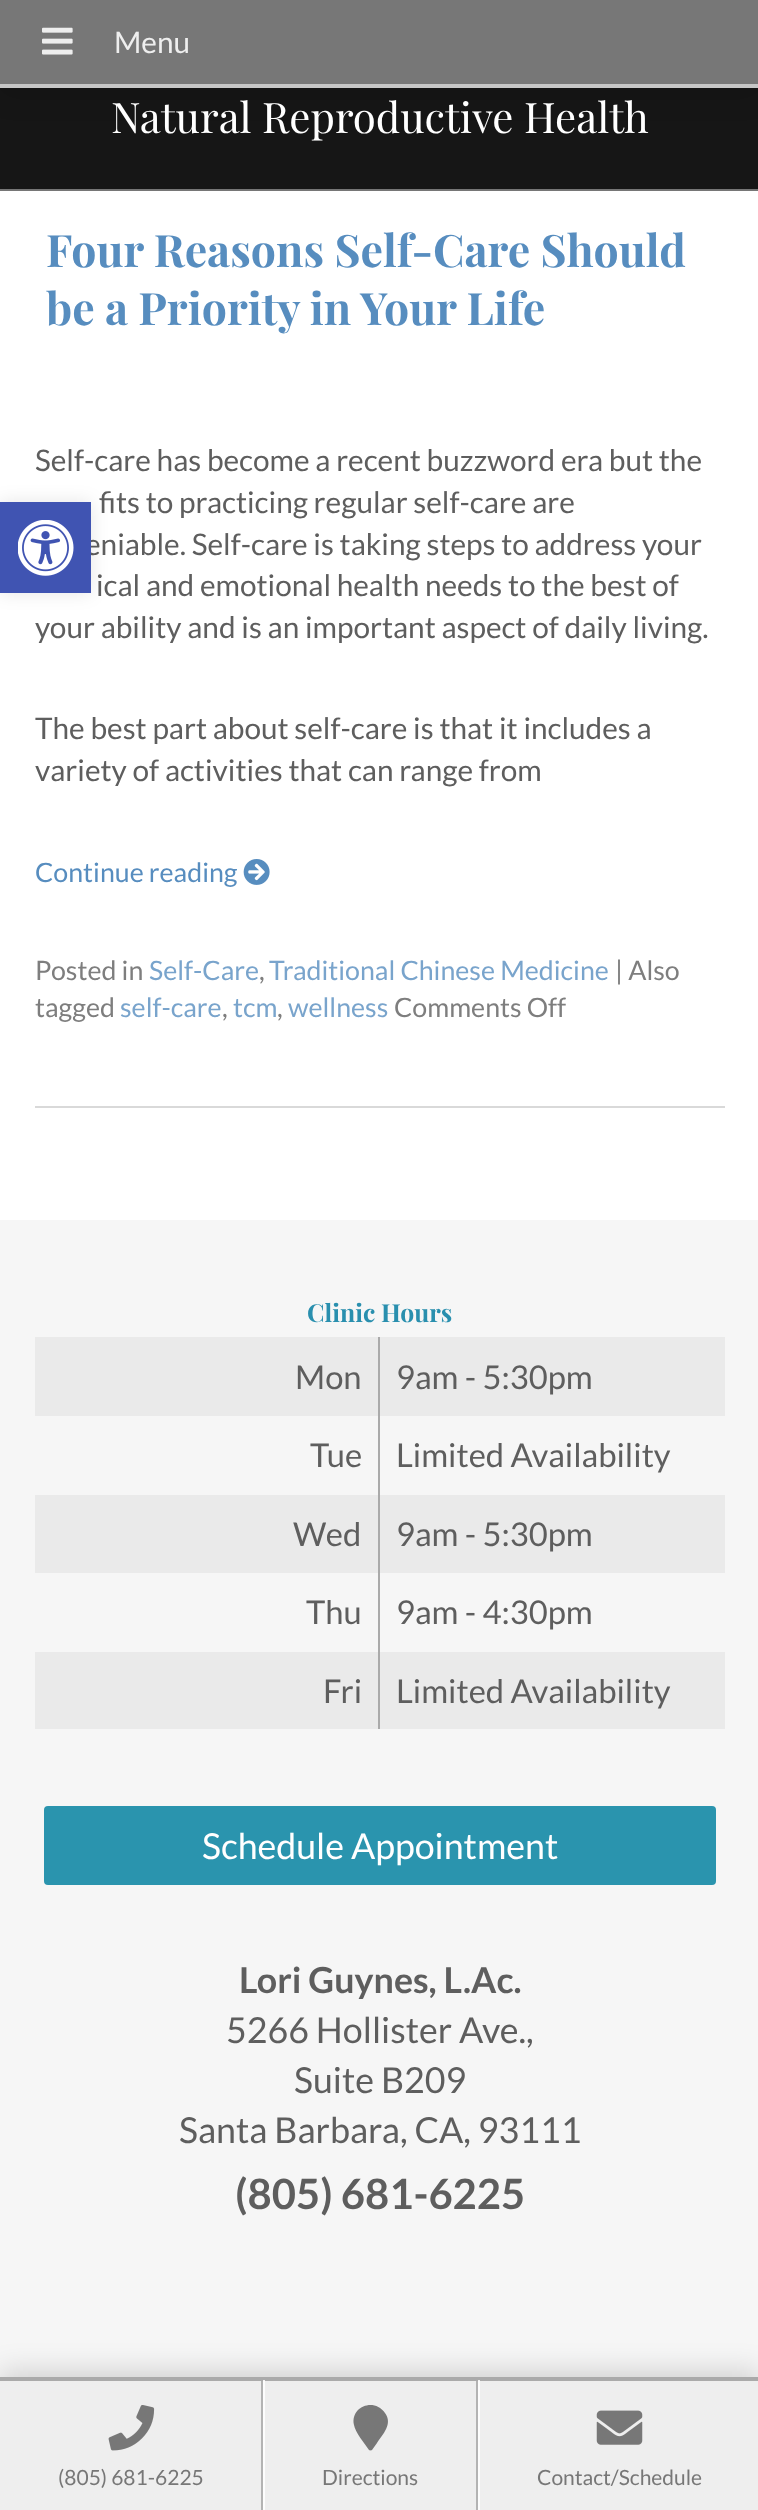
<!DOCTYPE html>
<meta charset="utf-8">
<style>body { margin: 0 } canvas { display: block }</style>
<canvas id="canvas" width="758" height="2510"></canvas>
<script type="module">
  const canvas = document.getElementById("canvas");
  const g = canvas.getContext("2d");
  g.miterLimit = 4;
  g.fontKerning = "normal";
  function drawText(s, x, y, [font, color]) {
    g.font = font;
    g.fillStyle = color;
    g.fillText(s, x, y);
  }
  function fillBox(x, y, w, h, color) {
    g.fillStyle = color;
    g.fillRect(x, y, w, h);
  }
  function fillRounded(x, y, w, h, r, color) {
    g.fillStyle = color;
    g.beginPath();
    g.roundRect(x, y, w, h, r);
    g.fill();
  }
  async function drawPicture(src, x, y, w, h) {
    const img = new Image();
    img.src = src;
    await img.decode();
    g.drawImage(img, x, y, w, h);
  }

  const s1 = ["29.75px Lato", "#EEEEEE"];
  const s2 = ["42px Playfair Display", "#FFFFFF"];
  const s3 = ["bold 44.6px Playfair Display", "#578DBF"];
  const s4 = ["29.75px Lato", "#5E5E5E"];
  const s5 = ["26.75px Lato", "#578DBF"];
  const s6 = ["26.75px Lato", "#7E7E7E"];
  const s7 = ["26.75px Lato", "#79A4CC"];
  const s8 = ["bold 24.75px Playfair Display", "#298FAE"];
  const s9 = ["32.75px Lato", "#5E5E5E"];
  const s10 = ["35.75px Lato", "#FFFFFF"];
  const s11 = ["bold 35.75px Lato", "#5E5E5E"];
  const s12 = ["35.75px Lato", "#5E5E5E"];
  const s13 = ["bold 41.75px Lato", "#5E5E5E"];
  const s14 = ["21px Lato", "#777777"];

  fillBox(0, 0, 758, 2510, "#FFFFFF");
  fillBox(0, 88, 758, 101, "#161616");
  g.fillStyle = "rgba(0, 0, 0, 0.15)";
  g.filter = "blur(14px)";
  g.beginPath();
  g.rect(0, 5, 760, 88);
  g.fill();
  g.filter = "none";
  fillBox(0, 0, 758, 84, "#777777");
  fillBox(0, 84, 758, 4, "#C6C6C6");
  await drawPicture("pic1.png", 42, 27, 31, 28);
  drawText("Menu", 114, 53, s1);
  fillBox(0, 189, 758, 2, "#767676");
  drawText("Natural Reproductive Health", 111, 133, s2);
  fillBox(35, 1106, 690, 2, "#D9D9D9");
  drawText("Four Reasons Self-Care Should", 46, 267, s3);
  drawText("be a Priority in Your Life", 46, 325, s3);
  drawText("Self-care has become a recent buzzword era but the", 35, 471, s4);
  drawText("fits to practicing regular self-care are", 99, 513, s4);
  drawText("eniable. Self-care is taking steps to address your", 85, 555, s4);
  drawText("ical and emotional health needs to the best of", 96, 596, s4);
  drawText("your ability and is an important aspect of daily living.", 35, 638, s4);
  drawText("The best part about self-care is that it includes a", 35, 739, s4);
  drawText("variety of activities that can range from", 35, 781, s4);
  drawText("Continue reading", 35, 882, s5);
  await drawPicture("pic2.png", 243, 859, 27, 26);
  drawText("Posted in", 35, 980, s6);
  drawText("Self-Care", 149, 980, s7);
  drawText(",", 259, 980, s6);
  drawText("Traditional Chinese Medicine", 269, 980, s7);
  drawText("| Also", 615, 980, s6);
  drawText("tagged", 35, 1017, s6);
  drawText("self-care", 120, 1017, s7);
  drawText(",", 222, 1017, s6);
  drawText("tcm", 233, 1017, s7);
  drawText(",", 277, 1017, s6);
  drawText("wellness", 288, 1017, s7);
  drawText("Comments Off", 394, 1017, s6);
  fillBox(0, 1220, 758, 1157, "#F6F6F6");
  drawText("Clinic Hours", 307, 1322, s8);
  fillBox(35, 1337, 690, 79, "#EAEAEA");
  fillBox(35, 1495, 690, 78, "#EAEAEA");
  fillBox(35, 1652, 690, 77, "#EAEAEA");
  fillBox(378, 1337, 2, 392, "#AAAAAA");
  drawText("Mon", 295, 1389, s9);
  drawText("9am - 5:30pm", 396, 1389, s9);
  drawText("Tue", 310, 1467, s9);
  drawText("Limited Availability", 396, 1467, s9);
  drawText("Wed", 293, 1546, s9);
  drawText("9am - 5:30pm", 396, 1546, s9);
  drawText("Thu", 306, 1624, s9);
  drawText("9am - 4:30pm", 396, 1624, s9);
  drawText("Fri", 323, 1703, s9);
  drawText("Limited Availability", 396, 1703, s9);
  fillRounded(44, 1806, 672, 79, 4, "#2A94AE");
  drawText("Schedule Appointment", 202, 1859, s10);
  drawText("Lori Guynes, L.Ac.", 239, 1993, s11);
  drawText("5266 Hollister Ave.,", 226, 2043, s12);
  drawText("Suite B209", 294, 2093, s12);
  drawText("Santa Barbara, CA, 93111", 179, 2143, s12);
  drawText("(805) 681-6225", 235, 2209, s13);
  g.fillStyle = "rgba(0, 0, 0, 0.1)";
  g.filter = "blur(9px)";
  g.beginPath();
  g.rect(0, 502, 91, 91);
  g.fill();
  g.filter = "none";
  fillBox(0, 502, 91, 91, "#4054B2");
  await drawPicture("pic3.png", 18, 520, 56, 56);
  g.fillStyle = "rgba(0, 0, 0, 0.15)";
  g.filter = "blur(14px)";
  g.beginPath();
  g.rect(0, 2371, 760, 135);
  g.fill();
  g.filter = "none";
  fillBox(0, 2381, 758, 129, "#EEEEEE");
  fillBox(478, 2380, 2, 130, "#FDFDFD");
  fillBox(263, 2380, 2, 130, "#FDFDFD");
  fillBox(476, 2380, 2, 130, "#B3B3B3");
  fillBox(261, 2380, 2, 130, "#B3B3B3");
  fillBox(0, 2377, 758, 4, "#AAAAAA");
  fillBox(478, 2380, 2, 1, "#F4F4F4");
  fillBox(263, 2380, 2, 1, "#F4F4F4");
  await drawPicture("pic4.png", 108, 2405, 47, 46);
  drawText("(805) 681-6225", 58, 2485, s14);
  g.beginPath();
  g.moveTo(369, 2450);
  g.bezierCurveTo(365, 2444, 355, 2432, 354, 2425);
  g.bezierCurveTo(350, 2407, 374, 2397, 385, 2413);
  g.bezierCurveTo(393, 2424, 383, 2434, 377, 2443);
  g.lineTo(372, 2450);
  g.bezierCurveTo(371, 2451, 369, 2450, 369, 2450);
  g.closePath();
  g.fill();
  drawText("Directions", 322, 2485, s14);
  await drawPicture("pic5.png", 596, 2410, 47, 35);
  drawText("Contact/Schedule", 537, 2485, s14);
</script>
